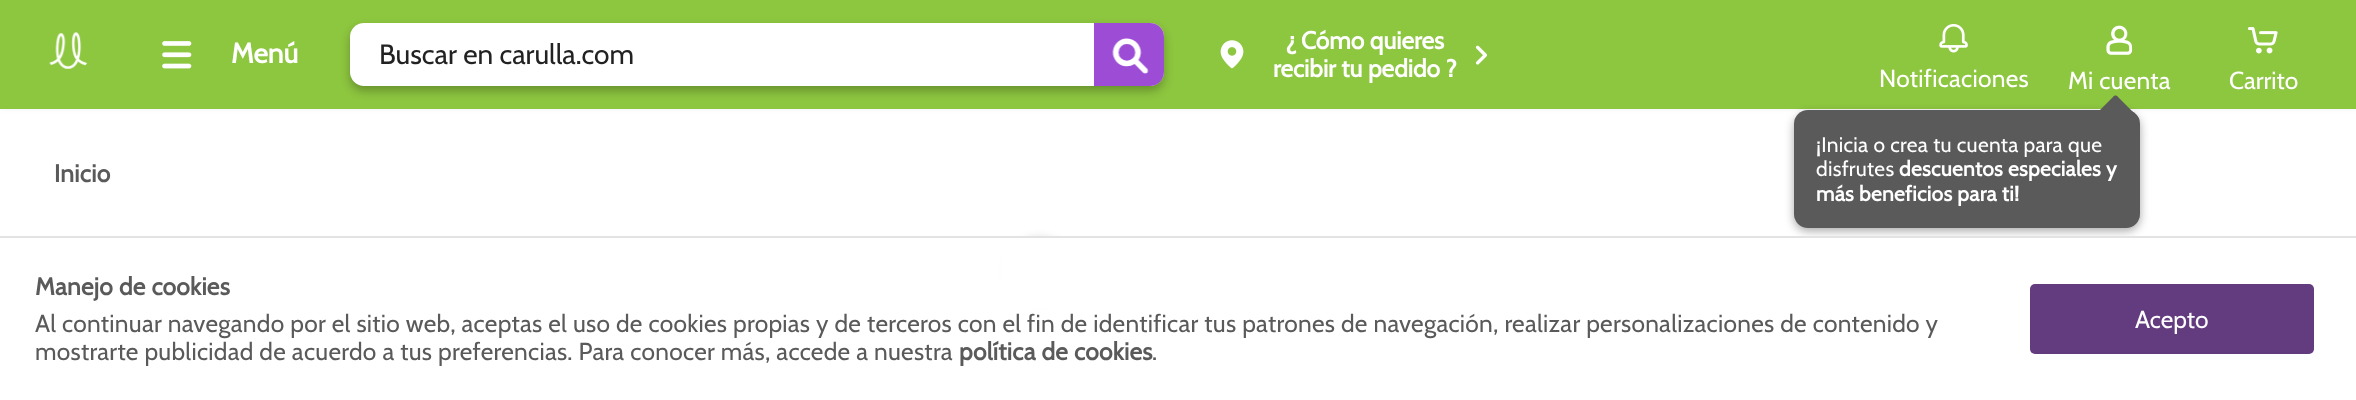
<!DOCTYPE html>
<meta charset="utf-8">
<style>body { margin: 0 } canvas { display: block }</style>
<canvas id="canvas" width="2356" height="400"></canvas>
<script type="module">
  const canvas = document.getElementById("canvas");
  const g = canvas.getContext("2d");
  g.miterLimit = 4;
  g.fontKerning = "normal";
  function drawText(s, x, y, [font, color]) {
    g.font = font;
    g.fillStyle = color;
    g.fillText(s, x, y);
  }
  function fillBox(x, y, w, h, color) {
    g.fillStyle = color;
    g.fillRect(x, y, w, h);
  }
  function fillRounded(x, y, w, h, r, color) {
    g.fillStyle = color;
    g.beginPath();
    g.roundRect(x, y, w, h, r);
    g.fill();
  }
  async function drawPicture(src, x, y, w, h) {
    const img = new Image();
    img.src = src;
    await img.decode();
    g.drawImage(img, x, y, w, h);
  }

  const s1 = ["bold 24.5px Cabin", "#5A5A5A"];
  const s2 = ["bold 28px Cabin", "#FFFFFF"];
  const s3 = ["28px Cabin", "#222222"];
  const s4 = ["bold 24.5px Cabin", "#FFFFFF"];
  const s5 = ["24.5px Cabin", "#FFFFFF"];
  const s6 = ["21px Cabin", "#FFFFFF"];
  const s7 = ["bold 21px Cabin", "#FFFFFF"];
  const s8 = ["24.5px Cabin", "#5A5A5A"];

  fillBox(0, 0, 2356, 400, "#FFFFFF");
  g.letterSpacing = "0.28px";
  drawText("Inicio", 54, 182, s1);
  g.fillStyle = "rgba(0, 0, 0, 0.16)";
  g.filter = "blur(5px)";
  g.beginPath();
  g.roundRect(1008, 238, 63, 63, 31.5);
  g.fill();
  g.filter = "none";
  g.fillStyle = "rgba(0, 0, 0, 0.05)";
  g.filter = "blur(2.5px)";
  g.beginPath();
  g.rect(0, 0, 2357, 109);
  g.fill();
  g.filter = "none";
  fillBox(0, 0, 2356, 109, "#8DC63F");
  await drawPicture("pic1.png", 49, 32, 39, 37);
  await drawPicture("pic2.png", 162, 41, 30, 28);
  g.letterSpacing = "0px";
  drawText("Menú", 231, 63, s2);
  fillRounded(350, 23, 814, 63, 14, "#FFFFFF");
  g.save();
  g.beginPath();
  g.moveTo(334, 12);
  g.lineTo(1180, 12);
  g.lineTo(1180, 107);
  g.lineTo(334, 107);
  g.closePath();
  g.moveTo(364, 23);
  g.lineTo(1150, 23);
  g.bezierCurveTo(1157.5, 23, 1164, 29.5, 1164, 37);
  g.lineTo(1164, 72);
  g.bezierCurveTo(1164, 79.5, 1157.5, 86, 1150, 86);
  g.lineTo(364, 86);
  g.bezierCurveTo(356.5, 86, 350, 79.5, 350, 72);
  g.lineTo(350, 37);
  g.bezierCurveTo(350, 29.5, 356.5, 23, 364, 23);
  g.closePath();
  g.clip("evenodd");
  g.fillStyle = "rgba(0, 0, 0, 0.26)";
  g.filter = "blur(5px)";
  g.beginPath();
  g.roundRect(350, 28, 814, 63, 14);
  g.fill();
  g.filter = "none";
  g.restore();
  drawText("Buscar en carulla.com", 379, 64, s3);
  g.fillStyle = "#9C4CD5";
  g.beginPath();
  g.roundRect(1094, 23, 70, 63, [0, 14, 14, 0]);
  g.fill();
  await drawPicture("pic3.png", 1112, 38, 37, 36);
  await drawPicture("pic4.png", 1220, 40, 24, 29);
  drawText("¿ Cómo quieres", 1286, 49, s4);
  drawText("recibir tu pedido ?", 1273, 77, s4);
  await drawPicture("pic5.png", 1475, 45, 12, 20);
  await drawPicture("pic6.png", 1939, 23, 29, 30);
  g.letterSpacing = "0.28px";
  drawText("Notificaciones", 1879, 87, s5);
  await drawPicture("pic7.png", 2106, 25, 27, 30);
  drawText("Mi cuenta", 2068, 89, s5);
  g.fillStyle = "rgba(0, 0, 0, 0.34)";
  g.filter = "blur(5px)";
  g.beginPath();
  g.roundRect(1794, 114, 346, 117, 14);
  g.fill();
  g.filter = "none";
  fillRounded(1794, 110, 346, 118, 14, "#5A5A5A");
  drawText("¡Inicia o crea tu cuenta para que", 1816, 152, s6);
  g.fillStyle = "#5A5A5A";
  g.beginPath();
  g.moveTo(2118, 97);
  g.lineTo(2138, 117);
  g.bezierCurveTo(2139, 118, 2139, 120, 2138, 122);
  g.lineTo(2118, 141);
  g.bezierCurveTo(2117, 143, 2114, 143, 2113, 141);
  g.lineTo(2093, 122);
  g.bezierCurveTo(2092, 120, 2092, 118, 2093, 117);
  g.lineTo(2113, 97);
  g.bezierCurveTo(2114, 95, 2117, 95, 2118, 97);
  g.closePath();
  g.fill();
  drawText("disfrutes", 1816, 176, s6);
  drawText("descuentos especiales y", 1899, 176, s7);
  drawText("más beneficios para ti!", 1816, 201, s7);
  await drawPicture("pic8.png", 2247, 27, 31, 27);
  g.letterSpacing = "0px";
  drawText("Carrito", 2229, 89, s5);
  fillBox(1001, 238, 1132, 70, "#FFFFFF");
  fillBox(0, 236, 2356, 2, "#E3E3E3");
  g.letterSpacing = "0.28px";
  drawText("Manejo de cookies", 35, 295, s1);
  drawText("Al continuar navegando por el sitio web, aceptas el uso de cookies propias y de terceros con el fin de identificar tus patrones de navegación, realizar personalizaciones de contenido y", 35, 332, s8);
  drawText("mostrarte publicidad de acuerdo a tus preferencias. Para conocer más, accede a nuestra", 35, 360, s8);
  drawText("política de cookies", 959, 360, s1);
  drawText(".", 1152, 360, s8);
  fillRounded(2030, 284, 284, 70, 5, "#633B7F");
  g.letterSpacing = "0px";
  drawText("Acepto", 2135, 328, s5);
</script>
